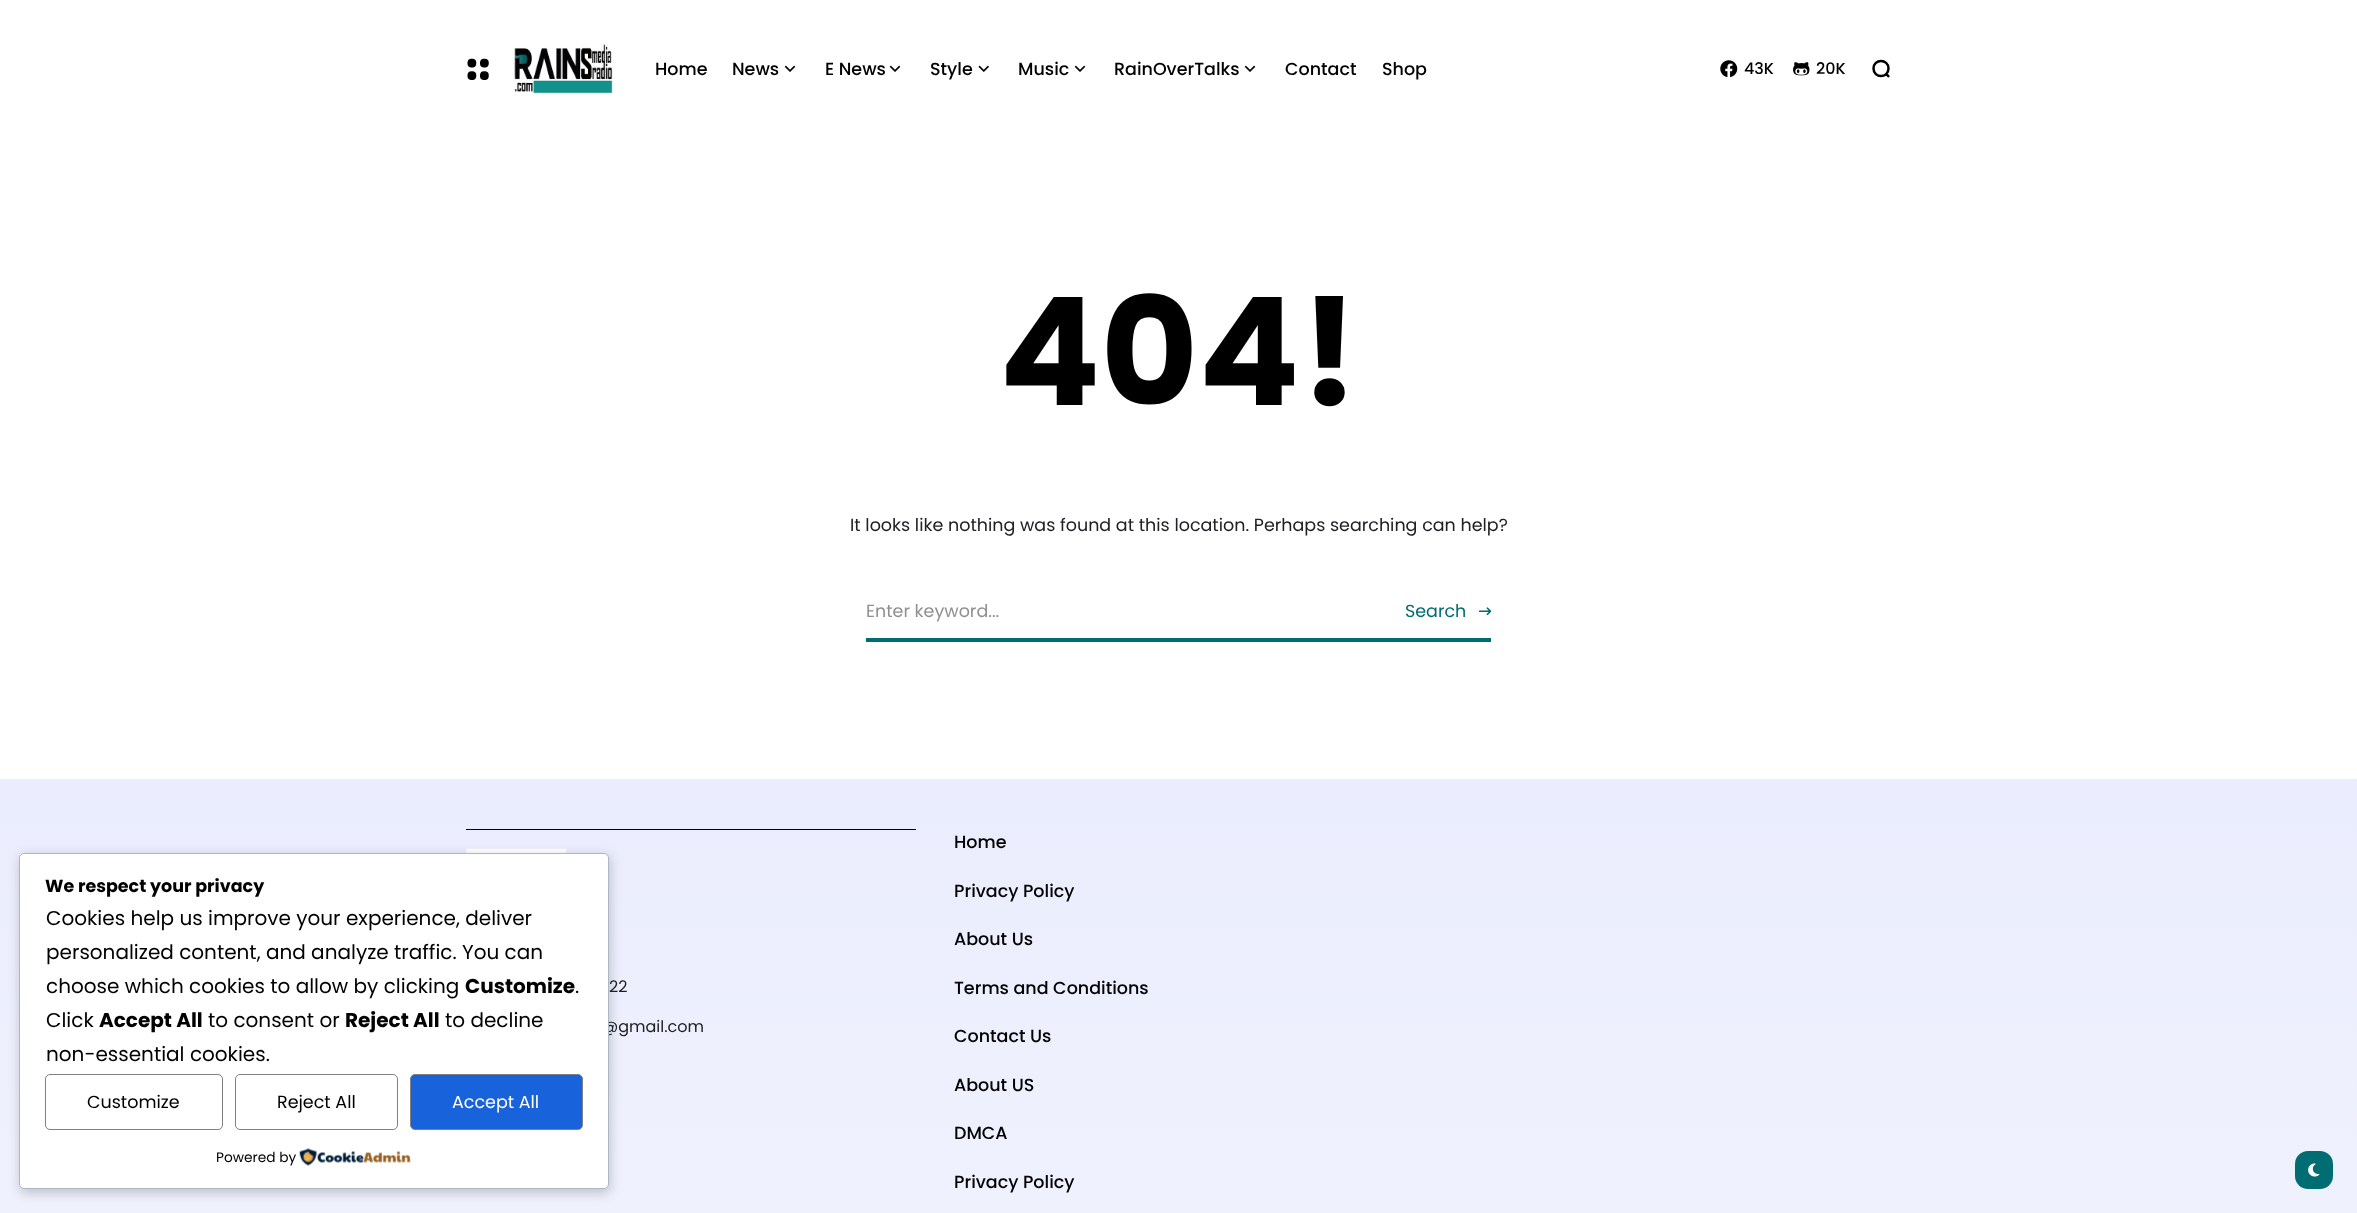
<!DOCTYPE html>
<meta charset="utf-8">
<style>body { margin: 0 } canvas { display: block }</style>
<canvas id="canvas" width="2357" height="1213"></canvas>
<script type="module">
  const canvas = document.getElementById("canvas");
  const g = canvas.getContext("2d");
  g.miterLimit = 4;
  g.fontKerning = "normal";
  function drawText(s, x, y, [font, color]) {
    g.font = font;
    g.fillStyle = color;
    g.fillText(s, x, y);
  }
  function fillBox(x, y, w, h, color) {
    g.fillStyle = color;
    g.fillRect(x, y, w, h);
  }
  function fillRounded(x, y, w, h, r, color) {
    g.fillStyle = color;
    g.beginPath();
    g.roundRect(x, y, w, h, r);
    g.fill();
  }
  async function drawPicture(src, x, y, w, h) {
    const img = new Image();
    img.src = src;
    await img.decode();
    g.drawImage(img, x, y, w, h);
  }
  let gradient;

  const s1 = ["16px Poppins", "#202124"];
  const s2 = ["bold 17.5px Poppins", "#000000"];
  const s3 = ["20px Poppins", "#000000"];
  const s4 = ["bold 20px Poppins", "#000000"];
  const s5 = ["17.5px Poppins", "#000000"];
  const s6 = ["17.5px Poppins", "#FFFFFF"];
  const s7 = ["13.75px Poppins", "#000000"];
  const s8 = ["500 17.5px Poppins", "#000000"];
  const s9 = ["500 16px Poppins", "#000000"];
  const s10 = ["bold 150px Poppins", "#000000"];
  const s11 = ["17.5px Poppins", "#202124"];
  const s12 = ["17.5px Poppins", "#909092"];
  const s13 = ["17.5px Poppins", "#006D72"];

  fillBox(0, 0, 2357, 1213, "#FFFFFF");
  gradient = g.createLinearGradient(1179, -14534, 1179, 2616);
  gradient.addColorStop(0, "#3D55EF");
  gradient.addColorStop(1, "#FFFFFF");
  g.fillStyle = gradient;
  g.fillRect(0, 779, 2357, 434);
  await drawPicture("pic9.png", 466, 848, 101, 5);
  g.fillStyle = "rgba(0, 0, 0, 0.2)";
  g.filter = "blur(6px)";
  g.beginPath();
  g.roundRect(20, 856, 590, 337, 5);
  g.fill();
  g.filter = "none";
  drawText("@gmail.com", 602, 1032, s1);
  g.fillStyle = "#FFFFFF";
  g.beginPath();
  g.roundRect(19.5, 853.5, 589, 335, 4.5);
  g.fill();
  g.strokeStyle = "#ABB8C3";
  g.stroke();
  drawText("We respect your privacy", 45, 892, s2);
  drawText("Cookies help us improve your experience, deliver", 46, 925, s3);
  drawText("personalized content, and analyze traffic. You can", 46, 959, s3);
  drawText("choose which cookies to allow by clicking", 46, 993, s3);
  drawText("Customize", 465, 993, s4);
  drawText(".", 575, 993, s3);
  drawText("Click", 46, 1027, s3);
  drawText("Accept All", 99, 1027, s4);
  drawText("to consent or", 208, 1027, s3);
  drawText("Reject All", 345, 1027, s4);
  drawText("to decline", 445, 1027, s3);
  drawText("non-essential cookies.", 46, 1061, s3);
  g.beginPath();
  g.roundRect(45.5, 1074.5, 177, 55, 4.5);
  g.strokeStyle = "#808080";
  g.stroke();
  drawText("Customize", 87, 1108, s5);
  g.beginPath();
  g.roundRect(235.5, 1074.5, 162, 55, 4.5);
  g.stroke();
  drawText("Reject All", 277, 1108, s5);
  g.fillStyle = "#1863DC";
  g.beginPath();
  g.roundRect(410.5, 1074.5, 172, 55, 4.5);
  g.fill();
  g.stroke();
  drawText("Accept All", 452, 1108, s6);
  drawText("Powered by", 216, 1162, s7);
  await drawPicture("pic1.png", 299, 1148, 112, 18);
  await drawPicture("pic2.png", 467, 58, 22, 22);
  await drawPicture("pic3.png", 514, 44, 99, 49);
  drawText("Home", 655, 75, s8);
  drawText("News", 732, 75, s8);
  await drawPicture("pic4.png", 784, 65, 12, 7);
  drawText("E News", 825, 75, s8);
  await drawPicture("pic4.png", 889, 65, 12, 7);
  drawText("Style", 930, 75, s8);
  await drawPicture("pic5.png", 978, 65, 11, 7);
  drawText("Music", 1018, 75, s8);
  await drawPicture("pic4.png", 1074, 65, 12, 7);
  drawText("RainOverTalks", 1114, 75, s8);
  await drawPicture("pic4.png", 1244, 65, 12, 7);
  drawText("Contact", 1285, 75, s8);
  drawText("Shop", 1382, 75, s8);
  await drawPicture("pic6.png", 1720, 60, 18, 18);
  drawText("43K", 1744, 74, s9);
  await drawPicture("pic7.png", 1793, 62, 17, 14);
  drawText("20K", 1816, 74, s9);
  g.beginPath();
  g.moveTo(1873.5, 68.5);
  g.bezierCurveTo(1873.5, 78.5, 1888.5, 78.5, 1888.5, 68.5);
  g.bezierCurveTo(1888.5, 58.5, 1873.5, 58.5, 1873.5, 68.5);
  g.moveTo(1886.5, 74);
  g.lineTo(1889, 77);
  g.strokeStyle = "#000000";
  g.lineWidth = 2.5;
  g.stroke();
  drawText("404!", 999, 405, s10);
  drawText("It looks like nothing was found at this location. Perhaps searching can help?", 850, 531, s11);
  fillBox(866, 638, 625, 4, "#006D72");
  drawText("Enter keyword...", 866, 617, s12);
  drawText("Search", 1405, 617, s13);
  await drawPicture("pic8.png", 1479, 607, 12, 9);
  fillBox(466, 829, 450, 1, "#000000");
  drawText("22", 609, 992, s1);
  drawText("Home", 954, 848, s8);
  drawText("Privacy Policy", 954, 897, s8);
  drawText("About Us", 954, 945, s8);
  drawText("Terms and Conditions", 954, 994, s8);
  drawText("Contact Us", 954, 1042, s8);
  drawText("About US", 954, 1091, s8);
  drawText("DMCA", 954, 1139, s8);
  drawText("Privacy Policy", 954, 1188, s8);
  fillRounded(2295, 1151, 38, 38, 13, "#006D72");
  await drawPicture("pic10.png", 2308, 1163, 12, 14);
</script>
